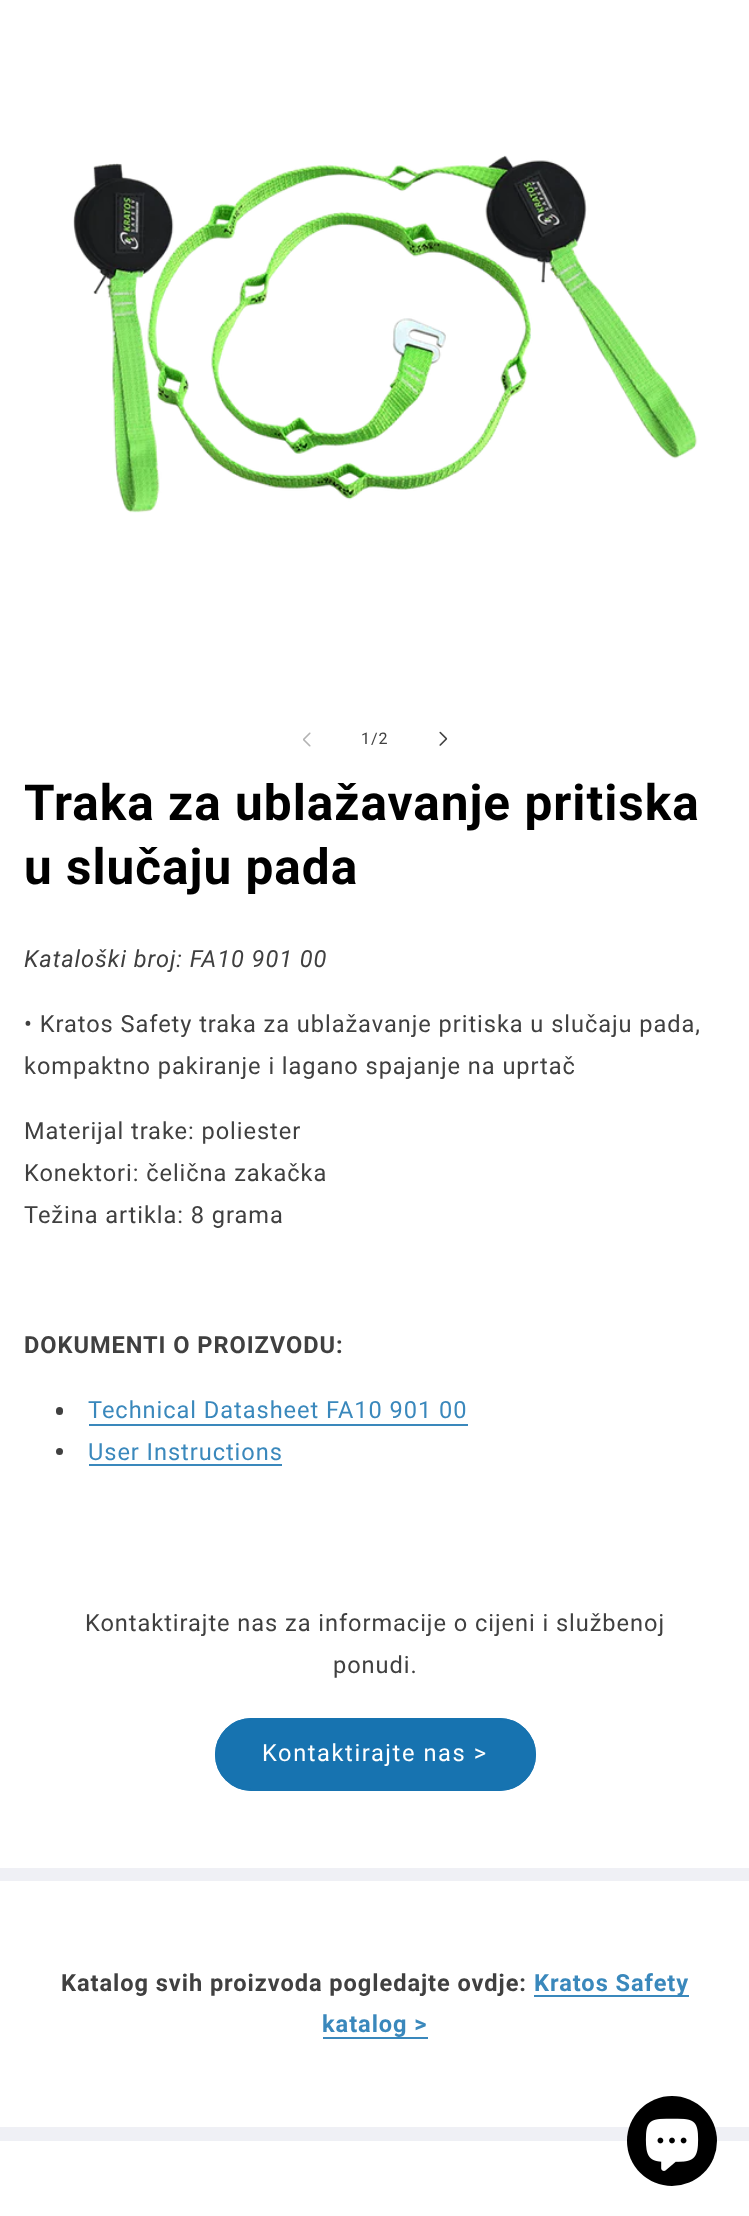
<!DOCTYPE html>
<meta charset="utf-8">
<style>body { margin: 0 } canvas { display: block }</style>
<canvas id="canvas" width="749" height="2216"></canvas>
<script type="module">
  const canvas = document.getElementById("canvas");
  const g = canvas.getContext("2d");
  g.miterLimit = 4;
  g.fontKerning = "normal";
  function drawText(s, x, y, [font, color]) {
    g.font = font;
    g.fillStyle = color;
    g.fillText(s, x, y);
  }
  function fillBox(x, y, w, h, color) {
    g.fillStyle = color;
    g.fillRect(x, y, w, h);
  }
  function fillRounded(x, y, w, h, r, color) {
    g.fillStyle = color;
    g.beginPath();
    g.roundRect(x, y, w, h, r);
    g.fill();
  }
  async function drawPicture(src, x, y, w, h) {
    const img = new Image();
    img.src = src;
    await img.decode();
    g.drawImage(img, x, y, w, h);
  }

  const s1 = ["16px Roboto", "#404040"];
  const s2 = ["bold 49.5px Roboto", "#000000"];
  const s3 = ["italic 23.6px Roboto", "#404040"];
  const s4 = ["23.6px Roboto", "#404040"];
  const s5 = ["bold 23.6px Roboto", "#404040"];
  const s6 = ["23.6px Roboto", "#3A88BC"];
  const s7 = ["23.6px Roboto", "#FFFFFF"];
  const s8 = ["bold 23.6px Roboto", "#3A88BC"];

  fillBox(0, 0, 749, 2216, "#EFF0F5");
  fillBox(0, 0, 749, 1580, "#FFFFFF");
  await drawPicture("pic1.png", 73, 155, 625, 358);
  await drawPicture("pic2.png", 303, 732, 8, 15);
  g.letterSpacing = "1px";
  drawText("1/2", 361, 744, s1);
  await drawPicture("pic3.png", 439, 731, 9, 15);
  drawText("Traka za ublažavanje pritiska", 24, 820, s2);
  drawText("u slučaju pada", 24, 884, s2);
  g.letterSpacing = "0.95px";
  drawText("Kataloški broj: FA10 901 00", 24, 967, s3);
  drawText("• Kratos Safety traka za ublažavanje pritiska u slučaju pada,", 24, 1032, s4);
  drawText("kompaktno pakiranje i lagano spajanje na uprtač", 24, 1074, s4);
  drawText("Materijal trake: poliester", 24, 1139, s4);
  drawText("Konektori: čelična zakačka", 24, 1181, s4);
  drawText("Težina artikla: 8 grama", 24, 1223, s4);
  drawText("DOKUMENTI O PROIZVODU:", 24, 1353, s5);
  fillRounded(56, 1407, 7, 8, 3.5, "#404040");
  drawText("Technical Datasheet FA10 901 00", 88, 1418, s6);
  fillBox(89, 1424, 379, 2, "#3A88BC");
  g.fillStyle = "#404040";
  g.beginPath();
  g.arc(59.5, 1451.5, 3.5, 0, Math.PI * 2);
  g.fill();
  drawText("User Instructions", 88, 1460, s6);
  fillBox(89, 1464, 193, 2, "#3A88BC");
  fillBox(0, 1580, 749, 288, "#FFFFFF");
  drawText("Kontaktirajte nas za informacije o cijeni i službenoj", 85, 1631, s4);
  drawText("ponudi.", 333, 1673, s4);
  fillRounded(215, 1718, 321, 73, 36.5, "#1773B0");
  g.beginPath();
  g.roundRect(216, 1719, 319, 71, 35.5);
  g.strokeStyle = "#1773B0";
  g.lineWidth = 2;
  g.stroke();
  g.letterSpacing = "1.6px";
  drawText("Kontaktirajte nas >", 262, 1761, s7);
  fillBox(0, 1881, 749, 246, "#FFFFFF");
  g.letterSpacing = "0.95px";
  drawText("Katalog svih proizvoda pogledajte ovdje:", 61, 1991, s5);
  fillBox(534, 1995, 155, 2, "#3A88BC");
  drawText("Kratos Safety", 534, 1991, s8);
  drawText("katalog >", 322, 2032, s8);
  fillBox(323, 2037, 105, 2, "#3A88BC");
  fillBox(0, 2141, 749, 75, "#FFFFFF");
  g.fillStyle = "#000000";
  g.beginPath();
  g.arc(672, 2141, 45, 0, Math.PI * 2);
  g.fill();
  await drawPicture("pic4.png", 645, 2118, 54, 53);
</script>
